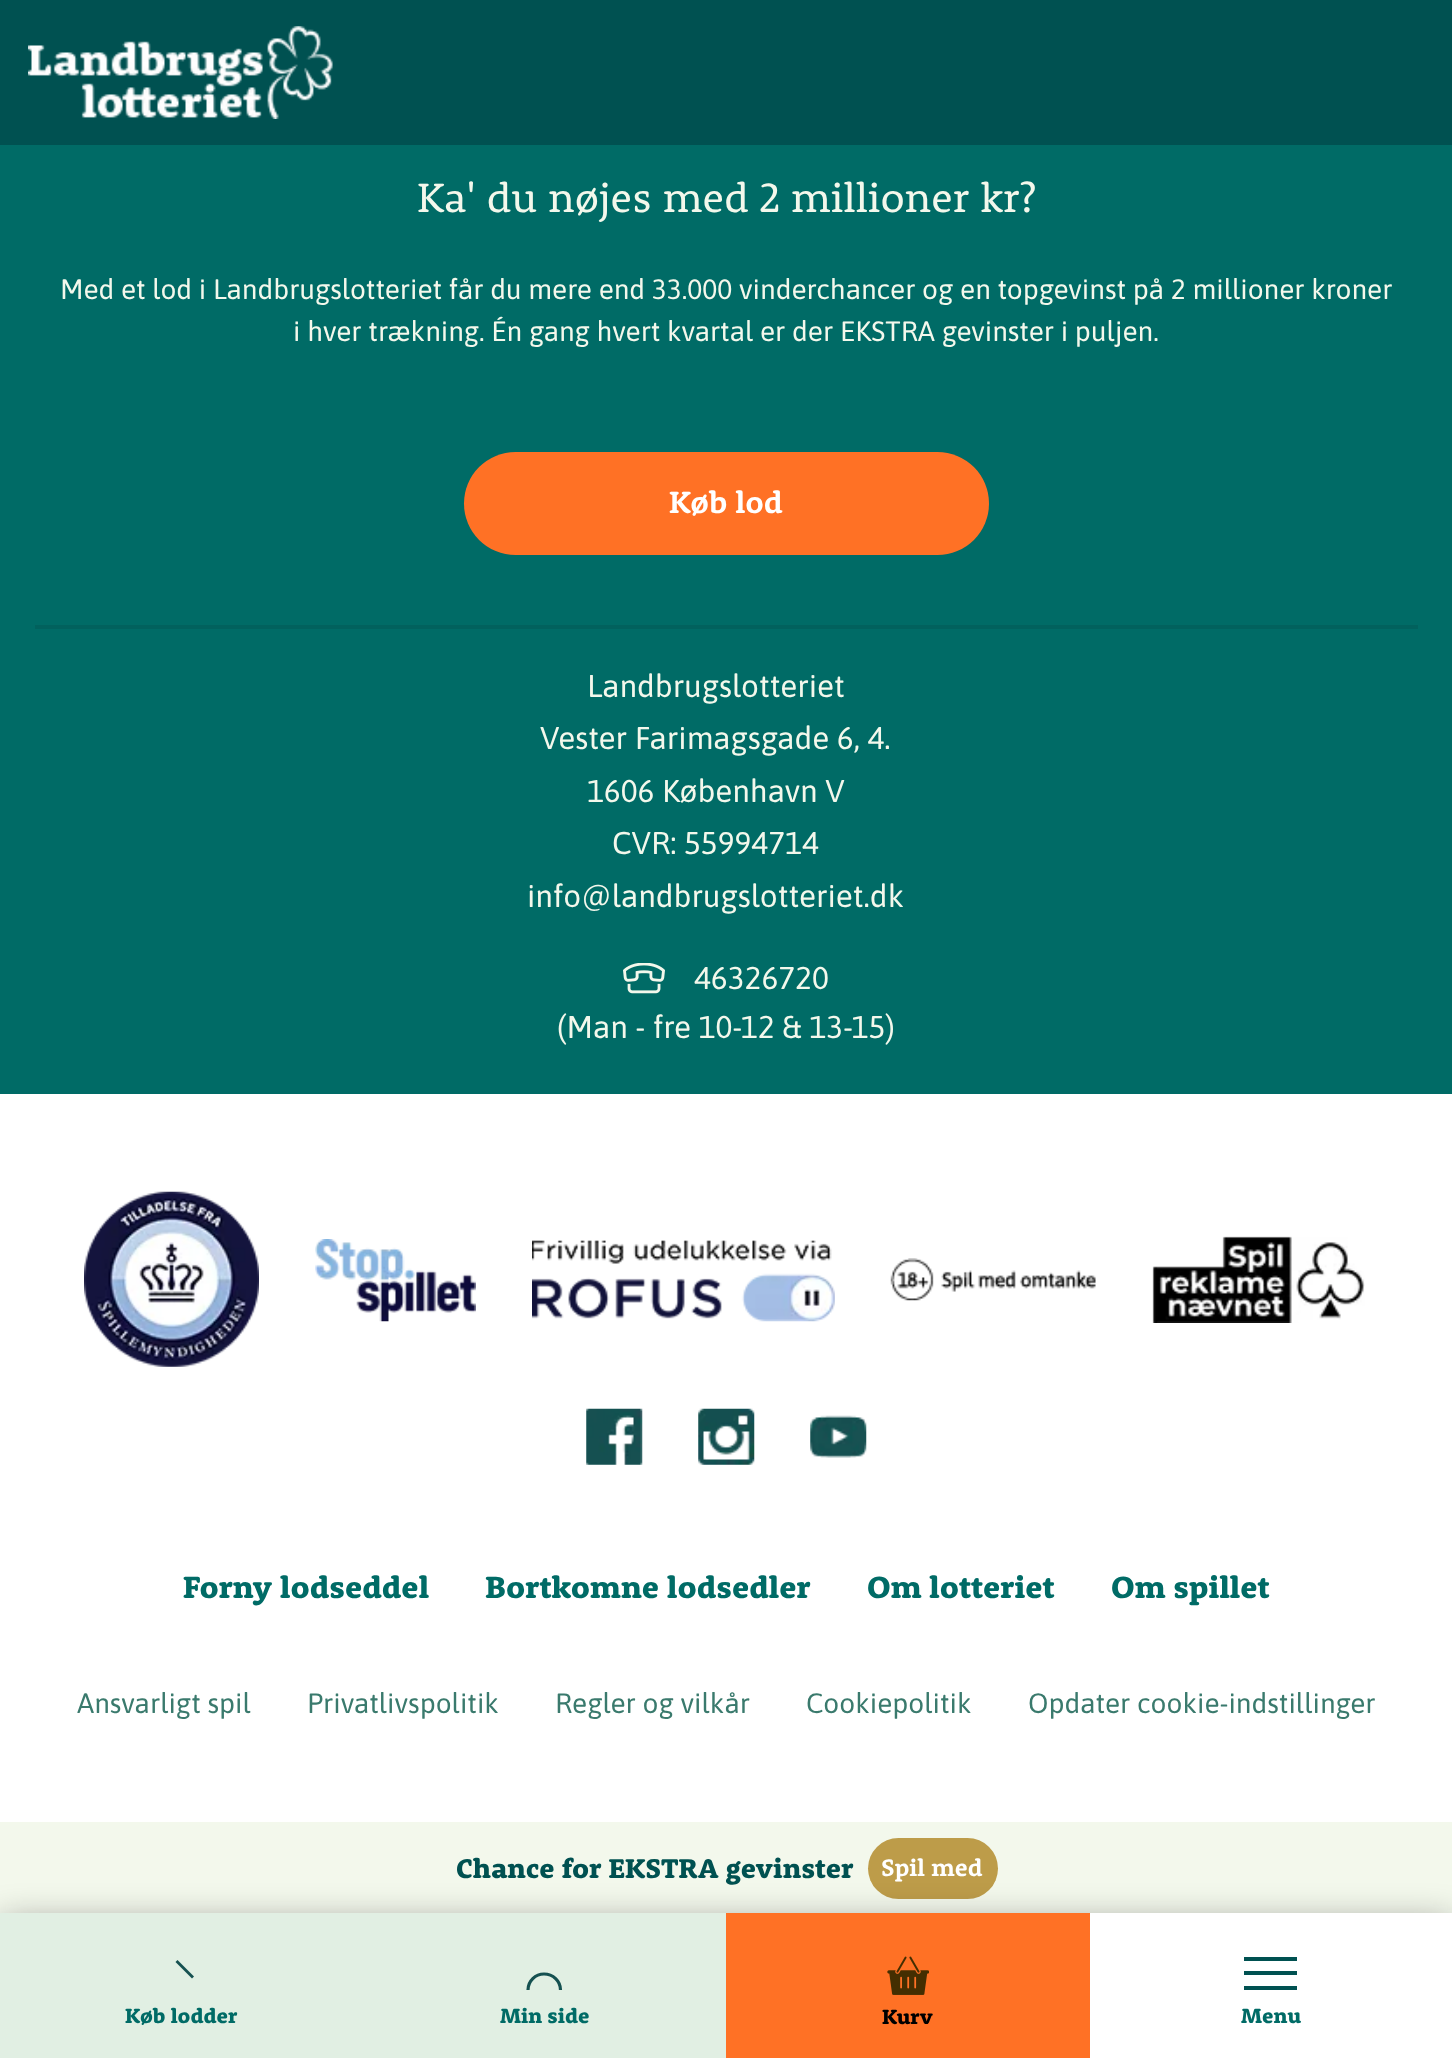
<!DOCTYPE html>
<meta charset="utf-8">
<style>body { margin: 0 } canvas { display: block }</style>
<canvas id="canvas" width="1452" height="2058"></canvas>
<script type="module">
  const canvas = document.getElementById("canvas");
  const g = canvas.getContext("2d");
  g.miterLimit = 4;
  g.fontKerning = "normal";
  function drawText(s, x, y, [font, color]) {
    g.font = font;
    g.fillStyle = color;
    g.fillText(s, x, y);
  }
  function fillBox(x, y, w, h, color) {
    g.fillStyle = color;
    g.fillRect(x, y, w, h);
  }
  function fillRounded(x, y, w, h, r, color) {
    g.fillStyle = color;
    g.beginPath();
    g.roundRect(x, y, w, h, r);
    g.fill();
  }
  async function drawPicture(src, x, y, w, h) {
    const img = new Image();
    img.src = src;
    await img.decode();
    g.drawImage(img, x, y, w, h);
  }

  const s1 = ["42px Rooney", "#F3F8EC"];
  const s2 = ["28px Asap", "#F3F8EC"];
  const s3 = ["bold 31.5px Rooney", "#FFFFFF"];
  const s4 = ["31.5px Asap", "#F3F8EC"];
  const s5 = ["900 31.5px Rooney", "#006B66"];
  const s6 = ["28px Asap", "#3A7A6D"];
  const s7 = ["900 28px Rooney", "#005151"];
  const s8 = ["bold 24.5px Rooney", "#FFFFFF"];
  const s9 = ["900 21px Rooney", "#006B66"];
  const s10 = ["900 21px Rooney", "#000000"];

  fillBox(0, 0, 1452, 2058, "#FFFFFF");
  fillBox(0, 145, 1452, 949, "#006B66");
  drawText("Ka' du nøjes med 2 millioner kr?", 417, 212, s1);
  drawText("Med et lod i Landbrugslotteriet får du mere end 33.000 vinderchancer og en topgevinst på 2 millioner kroner", 60, 299, s2);
  drawText("i hver trækning. Én gang hvert kvartal er der EKSTRA gevinster i puljen.", 293, 341, s2);
  fillRounded(464, 452, 525, 103, 51.5, "#FF7125");
  drawText("Køb lod", 669, 513, s3);
  fillBox(35, 625, 1383, 4, "#01615D");
  drawText("Landbrugslotteriet", 587, 697, s4);
  drawText("Vester Farimagsgade 6, 4.", 540, 749, s4);
  drawText("1606 København V", 587, 802, s4);
  drawText("CVR: 55994714", 612, 854, s4);
  drawText("info@landbrugslotteriet.dk", 527, 907, s4);
  await drawPicture("pic1.png", 623, 963, 42, 31);
  drawText("46326720", 694, 989, s4);
  drawText("(Man - fre 10-12 & 13-15)", 557, 1038, s4);
  await drawPicture("pic2.png", 84, 1191, 175, 176);
  await drawPicture("pic3.png", 315, 1239, 161, 83);
  await drawPicture("pic4.png", 532, 1240, 303, 82);
  await drawPicture("pic5.png", 890, 1258, 206, 43);
  await drawPicture("pic6.png", 1152, 1236, 213, 87);
  await drawPicture("pic7.png", 586, 1408, 57, 57);
  await drawPicture("pic8.png", 698, 1408, 57, 57);
  await drawPicture("pic9.png", 810, 1415, 57, 43);
  drawText("Forny lodseddel", 183, 1598, s5);
  drawText("Bortkomne lodsedler", 485, 1598, s5);
  drawText("Om lotteriet", 867, 1598, s5);
  drawText("Om spillet", 1111, 1598, s5);
  drawText("Ansvarligt spil", 77, 1713, s6);
  drawText("Privatlivspolitik", 307, 1713, s6);
  drawText("Regler og vilkår", 555, 1713, s6);
  drawText("Cookiepolitik", 806, 1713, s6);
  drawText("Opdater cookie-indstillinger", 1028, 1713, s6);
  fillBox(0, 0, 1452, 145, "#005151");
  await drawPicture("pic10.png", 28, 26, 305, 93);
  fillBox(0, 1822, 1452, 91, "#F3F8EC");
  drawText("Chance for EKSTRA gevinster", 456, 1878, s7);
  fillRounded(868, 1838, 130, 61, 30.5, "#BD9C49");
  drawText("Spil med", 881, 1876, s8);
  g.fillStyle = "rgba(10, 10, 10, 0.4)";
  g.filter = "blur(17.5px)";
  g.beginPath();
  g.rect(0, 1922, 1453, 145);
  g.fill();
  g.filter = "none";
  fillBox(0, 1913, 726, 145, "#E1EFE3");
  g.fillStyle = "#155151";
  g.beginPath();
  g.moveTo(177.5, 1960);
  g.lineTo(194, 1976.5);
  g.lineTo(192, 1978.5);
  g.lineTo(175.5, 1962);
  g.closePath();
  g.fill();
  drawText("Køb lodder", 125, 2023, s9);
  g.beginPath();
  g.moveTo(560.5, 1990);
  g.bezierCurveTo(560.5, 1981, 553, 1974, 544, 1974);
  g.bezierCurveTo(535.5, 1974, 528, 1981, 528, 1990);
  g.strokeStyle = "#155151";
  g.lineWidth = 3.2;
  g.stroke();
  drawText("Min side", 500, 2023, s9);
  fillBox(726, 1913, 364, 145, "#FF7125");
  await drawPicture("pic11.png", 887, 1956, 42, 39);
  drawText("Kurv", 882, 2024, s10);
  fillBox(1090, 1913, 362, 145, "#FFFFFF");
  fillBox(1244, 1957, 53, 4, "#005151");
  fillBox(1244, 1971, 53, 4, "#005151");
  fillBox(1244, 1986, 53, 4, "#005151");
  drawText("Menu", 1241, 2023, s9);
</script>
